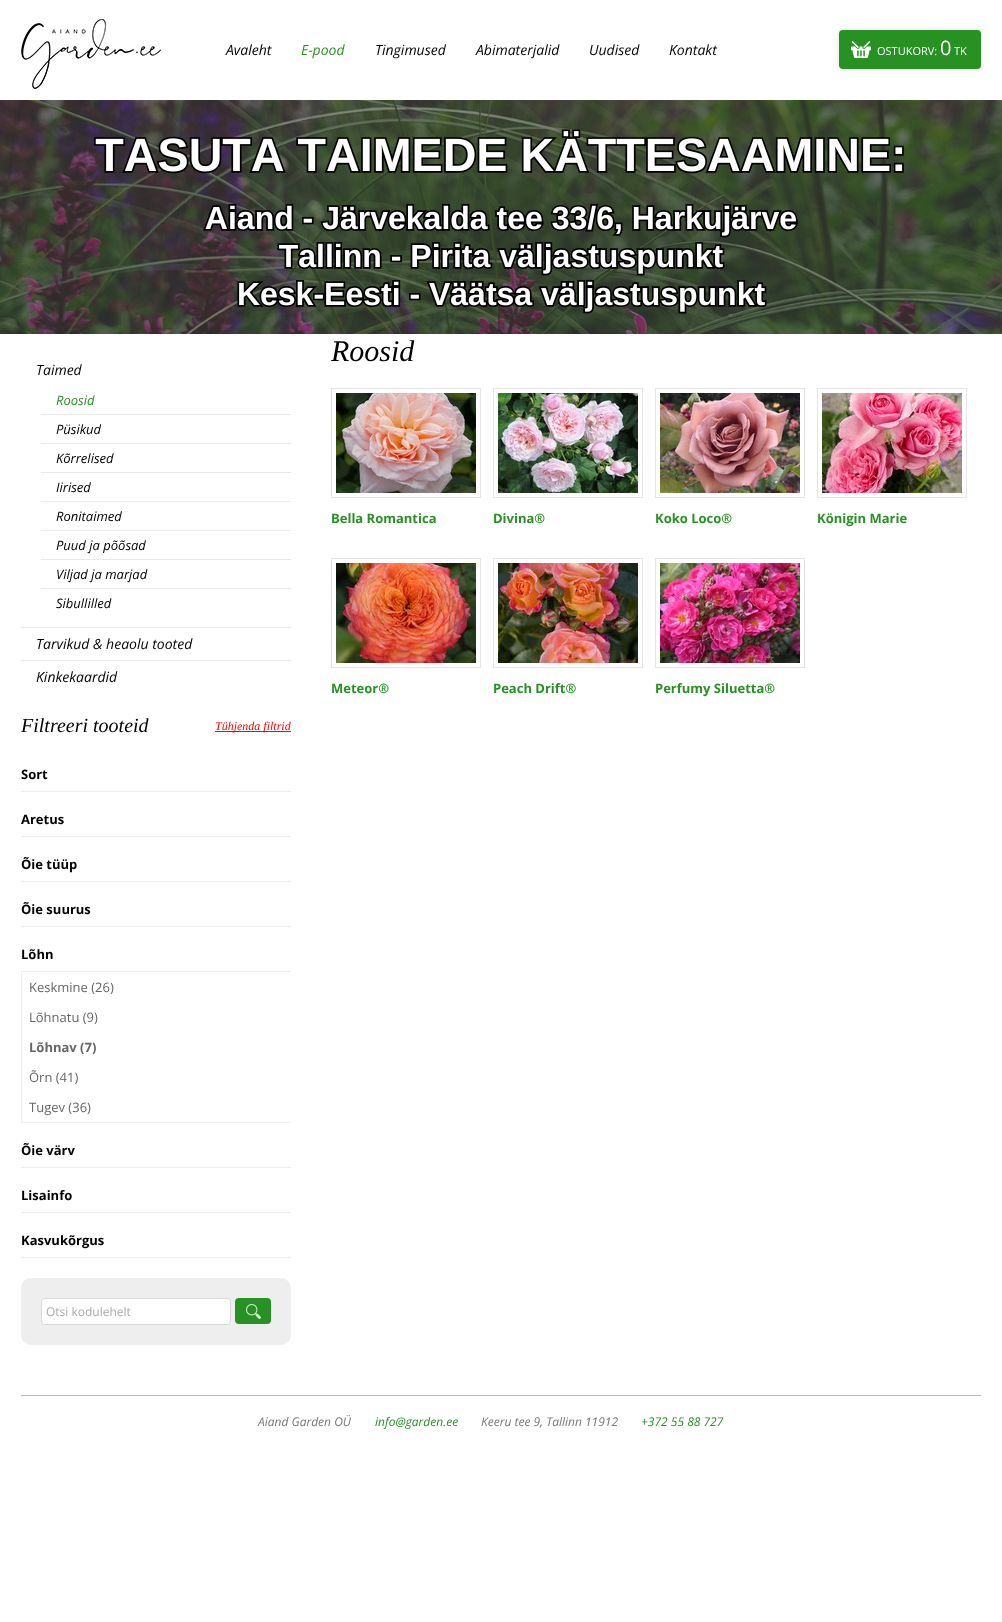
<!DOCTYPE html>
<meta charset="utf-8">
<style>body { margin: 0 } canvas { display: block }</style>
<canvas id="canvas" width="1002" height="1622"></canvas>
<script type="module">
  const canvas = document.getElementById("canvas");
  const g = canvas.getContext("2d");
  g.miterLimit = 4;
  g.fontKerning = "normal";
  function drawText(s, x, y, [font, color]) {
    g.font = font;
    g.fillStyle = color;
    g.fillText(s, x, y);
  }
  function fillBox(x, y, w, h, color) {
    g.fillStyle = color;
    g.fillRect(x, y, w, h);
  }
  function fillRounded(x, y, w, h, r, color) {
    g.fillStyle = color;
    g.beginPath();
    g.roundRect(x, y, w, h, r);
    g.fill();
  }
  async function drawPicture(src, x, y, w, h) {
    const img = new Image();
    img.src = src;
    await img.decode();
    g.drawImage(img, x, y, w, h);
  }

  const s1 = ["italic 14px Open Sans", "#000000"];
  const s2 = ["italic 14px Open Sans", "#279223"];
  const s3 = ["11px Open Sans", "#FFFFFF"];
  const s4 = ["20px Open Sans", "#FFFFFF"];
  const s5 = ["italic 13px Open Sans", "#279223"];
  const s6 = ["italic 13px Open Sans", "#000000"];
  const s7 = ["italic 20px Liberation Serif", "#000000"];
  const s8 = ["italic 12px Liberation Serif", "#FF0000"];
  const s9 = ["bold 13px Open Sans", "#000000"];
  const s10 = ["13px Open Sans", "#666666"];
  const s11 = ["bold 13px Open Sans", "#666666"];
  const s12 = ["12px Open Sans", "#AAAAAA"];
  const s13 = ["italic 30px Liberation Serif", "#000000"];
  const s14 = ["bold 13px Open Sans", "#279223"];
  const s15 = ["italic 12px Open Sans", "#777777"];
  const s16 = ["italic 12px Open Sans", "#279223"];

  fillBox(0, 0, 1002, 1622, "#FFFFFF");
  await drawPicture("pic1.png", 21, 19, 140, 70);
  drawText("Avaleht", 226, 55, s1);
  drawText("E-pood", 301, 55, s2);
  drawText("Tingimused", 375, 55, s1);
  drawText("Abimaterjalid", 476, 55, s1);
  drawText("Uudised", 589, 55, s1);
  drawText("Kontakt", 669, 55, s1);
  g.fillStyle = "rgba(158, 158, 158, 0.34)";
  g.filter = "blur(2.5px)";
  g.beginPath();
  g.roundRect(839, 30, 142, 39, 4);
  g.fill();
  g.filter = "none";
  fillRounded(839, 30, 142, 39, 4, "#279223");
  await drawPicture("pic2.png", 851, 41, 20, 17);
  drawText("OSTUKORV:", 877, 55, s3);
  drawText("0", 940, 55, s4);
  drawText("TK", 954, 55, s3);
  await drawPicture("pic3.png", 0, 100, 1002, 234);
  drawText("Taimed", 36, 375, s1);
  drawText("Roosid", 56, 405, s5);
  fillBox(41, 414, 250, 1, "#E9E9E9");
  drawText("Püsikud", 56, 434, s6);
  fillBox(41, 443, 250, 1, "#E9E9E9");
  drawText("Kõrrelised", 56, 463, s6);
  fillBox(41, 472, 250, 1, "#E9E9E9");
  drawText("Iirised", 56, 492, s6);
  fillBox(41, 501, 250, 1, "#E9E9E9");
  drawText("Ronitaimed", 56, 521, s6);
  fillBox(41, 530, 250, 1, "#E9E9E9");
  drawText("Puud ja põõsad", 56, 550, s6);
  fillBox(41, 559, 250, 1, "#E9E9E9");
  drawText("Viljad ja marjad", 56, 579, s6);
  fillBox(41, 588, 250, 1, "#E9E9E9");
  drawText("Sibullilled", 56, 608, s6);
  fillBox(21, 627, 270, 1, "#E9E9E9");
  drawText("Tarvikud & heaolu tooted", 36, 649, s1);
  fillBox(21, 660, 270, 1, "#E9E9E9");
  drawText("Kinkekaardid", 36, 682, s1);
  drawText("Filtreeri tooteid", 21, 732, s7);
  fillBox(215, 731, 76, 1, "#FF0000");
  drawText("Tühjenda filtrid", 215, 730, s8);
  fillBox(21, 791, 270, 1, "#EEEEEE");
  drawText("Sort", 21, 779, s9);
  fillBox(21, 836, 270, 1, "#EEEEEE");
  drawText("Aretus", 21, 824, s9);
  fillBox(21, 881, 270, 1, "#EEEEEE");
  drawText("Õie tüüp", 21, 869, s9);
  fillBox(21, 926, 270, 1, "#EEEEEE");
  drawText("Õie suurus", 21, 914, s9);
  fillBox(21, 971, 270, 1, "#EEEEEE");
  drawText("Lõhn", 21, 959, s9);
  fillBox(21, 1122, 270, 1, "#EEEEEE");
  fillBox(21, 972, 1, 151, "#EEEEEE");
  drawText("Keskmine (26)", 29, 992, s10);
  drawText("Lõhnatu (9)", 29, 1022, s10);
  drawText("Lõhnav (7)", 29, 1052, s11);
  drawText("Õrn (41)", 29, 1082, s10);
  drawText("Tugev (36)", 29, 1112, s10);
  fillBox(21, 1167, 270, 1, "#EEEEEE");
  drawText("Õie värv", 21, 1155, s9);
  fillBox(21, 1212, 270, 1, "#EEEEEE");
  drawText("Lisainfo", 21, 1200, s9);
  fillBox(21, 1257, 270, 1, "#EEEEEE");
  drawText("Kasvukõrgus", 21, 1245, s9);
  fillRounded(21, 1278, 270, 67, 10, "#EEEEEE");
  g.fillStyle = "#FFFFFF";
  g.beginPath();
  g.roundRect(41.5, 1298.5, 189, 26, 3.5);
  g.fill();
  g.strokeStyle = "#D9D9D9";
  g.stroke();
  drawText("Otsi kodulehelt", 46, 1316, s12);
  fillRounded(235, 1298, 36, 26, 4, "#279223");
  await drawPicture("pic4.png", 246, 1304, 15, 15);
  drawText("Roosid", 331, 361, s13);
  g.strokeStyle = "#E5E5E5";
  g.strokeRect(331.5, 388.5, 149, 109);
  await drawPicture("pic5.png", 336, 393, 140, 100);
  drawText("Bella Romantica", 331, 523, s14);
  g.strokeRect(493.5, 388.5, 149, 109);
  await drawPicture("pic6.png", 498, 393, 140, 100);
  drawText("Divina®", 493, 523, s14);
  g.strokeRect(655.5, 388.5, 149, 109);
  await drawPicture("pic7.png", 660, 393, 140, 100);
  drawText("Koko Loco®", 655, 523, s14);
  g.strokeRect(817.5, 388.5, 149, 109);
  await drawPicture("pic8.png", 822, 393, 140, 100);
  drawText("Königin Marie", 817, 523, s14);
  g.strokeRect(331.5, 558.5, 149, 109);
  await drawPicture("pic9.png", 336, 563, 140, 100);
  drawText("Meteor®", 331, 693, s14);
  g.strokeRect(493.5, 558.5, 149, 109);
  await drawPicture("pic10.png", 498, 563, 140, 100);
  drawText("Peach Drift®", 493, 693, s14);
  g.strokeRect(655.5, 558.5, 149, 109);
  await drawPicture("pic11.png", 660, 563, 140, 100);
  drawText("Perfumy Siluetta®", 655, 693, s14);
  fillBox(21, 1395, 960, 1, "#9AD099");
  drawText("Aiand Garden OÜ", 258, 1426, s15);
  drawText("info@garden.ee", 375, 1426, s16);
  drawText("Keeru tee 9, Tallinn 11912", 481, 1426, s15);
  drawText("+372 55 88 727", 641, 1426, s16);
</script>
